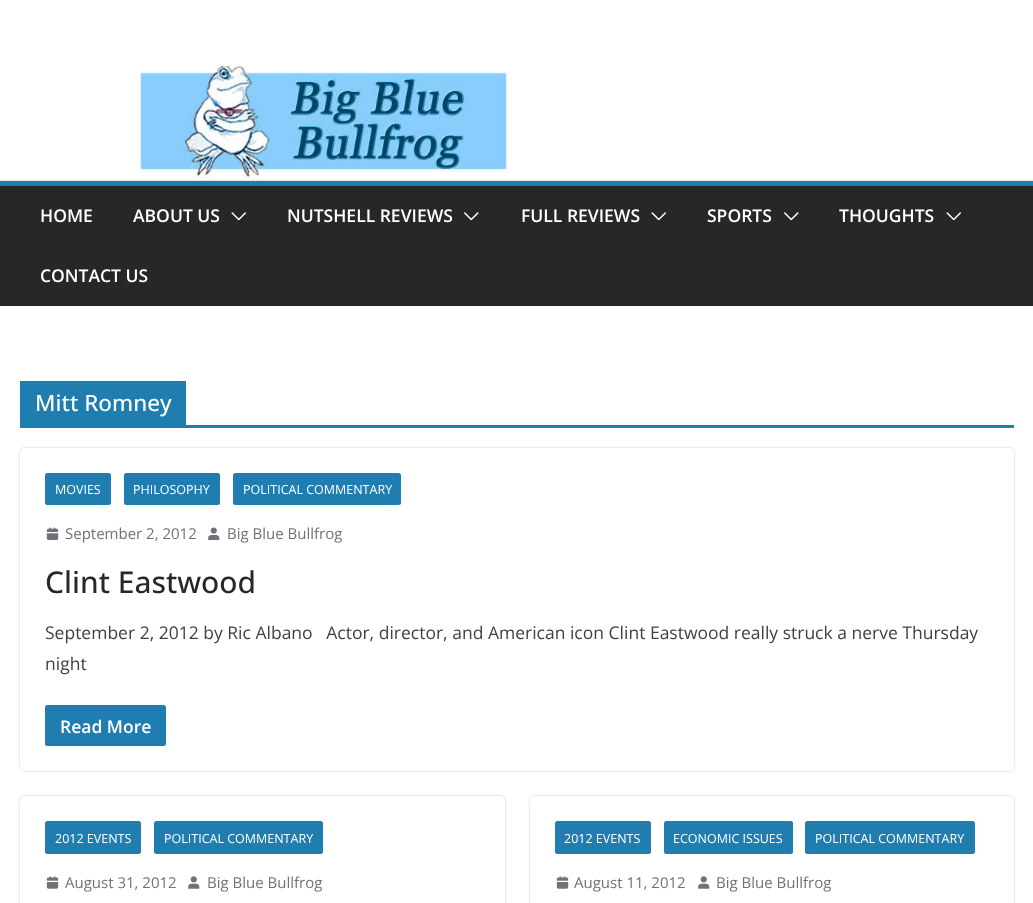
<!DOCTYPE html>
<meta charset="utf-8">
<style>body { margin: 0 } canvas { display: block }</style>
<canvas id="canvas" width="1033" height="903"></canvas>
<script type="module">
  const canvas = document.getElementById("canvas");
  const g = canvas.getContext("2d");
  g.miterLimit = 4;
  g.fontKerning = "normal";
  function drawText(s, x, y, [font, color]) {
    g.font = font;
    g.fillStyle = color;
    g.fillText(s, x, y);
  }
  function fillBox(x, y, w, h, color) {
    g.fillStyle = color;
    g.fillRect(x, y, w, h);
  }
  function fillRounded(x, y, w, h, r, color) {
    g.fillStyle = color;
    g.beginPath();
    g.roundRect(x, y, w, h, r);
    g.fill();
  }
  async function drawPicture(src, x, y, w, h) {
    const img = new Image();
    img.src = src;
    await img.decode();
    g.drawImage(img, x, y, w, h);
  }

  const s1 = ["600 17.5px Open Sans", "#FFFFFF"];
  const s2 = ["500 22.5px Open Sans", "#FFFFFF"];
  const s3 = ["12.5px Open Sans", "#FFFFFF"];
  const s4 = ["15px Open Sans", "#71717A"];
  const s5 = ["500 30px Open Sans", "#27272A"];
  const s6 = ["17.5px Open Sans", "#3F3F46"];

  fillBox(0, 0, 1033, 903, "#FFFFFF");
  await drawPicture("pic1.png", 136, 64, 372, 115);
  fillBox(0, 180, 1033, 1, "#E4E4E7");
  fillBox(0, 186, 1033, 120, "#27272A");
  fillBox(0, 181, 1033, 5, "#207DAF");
  drawText("HOME", 40, 222, s1);
  drawText("ABOUT US", 133, 222, s1);
  await drawPicture("pic2.png", 231, 212, 15, 9);
  drawText("NUTSHELL REVIEWS", 287, 222, s1);
  await drawPicture("pic3.png", 464, 212, 15, 9);
  drawText("FULL REVIEWS", 521, 222, s1);
  await drawPicture("pic2.png", 651, 212, 15, 9);
  drawText("SPORTS", 707, 222, s1);
  await drawPicture("pic3.png", 784, 212, 15, 9);
  drawText("THOUGHTS", 839, 222, s1);
  await drawPicture("pic2.png", 946, 212, 15, 9);
  drawText("CONTACT US", 40, 282, s1);
  fillBox(20, 425, 994, 3, "#207DAF");
  fillBox(20, 381, 166, 44, "#207DAF");
  drawText("Mitt Romney", 35, 411, s2);
  g.save();
  g.beginPath();
  g.moveTo(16, 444);
  g.lineTo(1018, 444);
  g.lineTo(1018, 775);
  g.lineTo(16, 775);
  g.closePath();
  g.moveTo(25, 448);
  g.lineTo(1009, 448);
  g.bezierCurveTo(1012, 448, 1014, 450, 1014, 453);
  g.lineTo(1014, 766);
  g.bezierCurveTo(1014, 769, 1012, 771, 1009, 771);
  g.lineTo(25, 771);
  g.bezierCurveTo(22, 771, 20, 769, 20, 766);
  g.lineTo(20, 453);
  g.bezierCurveTo(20, 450, 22, 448, 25, 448);
  g.closePath();
  g.clip("evenodd");
  g.fillStyle = "rgba(0, 0, 0, 0.24)";
  g.filter = "blur(1px)";
  g.beginPath();
  g.roundRect(20, 448, 994, 323, 5);
  g.fill();
  g.filter = "none";
  g.restore();
  fillRounded(45, 473, 66, 32, 2.5, "#207DAF");
  drawText("MOVIES", 55, 494, s3);
  fillRounded(124, 473, 96, 32, 2.5, "#207DAF");
  drawText("PHILOSOPHY", 133, 494, s3);
  fillRounded(233, 473, 168, 32, 2.5, "#207DAF");
  drawText("POLITICAL COMMENTARY", 243, 494, s3);
  await drawPicture("pic4.png", 46, 527, 13, 13);
  drawText("September 2, 2012", 65, 539, s4);
  await drawPicture("pic5.png", 208, 527, 12, 13);
  drawText("Big Blue Bullfrog", 227, 539, s4);
  drawText("Clint Eastwood", 45, 593, s5);
  drawText("September 2, 2012 by Ric Albano   Actor, director, and American icon Clint Eastwood really struck a nerve Thursday", 45, 639, s6);
  drawText("night", 45, 670, s6);
  fillRounded(45, 705, 121, 41, 2.5, "#207DAF");
  drawText("Read More", 60, 733, s1);
  g.save();
  g.beginPath();
  g.moveTo(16, 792);
  g.lineTo(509, 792);
  g.lineTo(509, 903);
  g.lineTo(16, 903);
  g.closePath();
  g.moveTo(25, 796);
  g.lineTo(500, 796);
  g.bezierCurveTo(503, 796, 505, 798, 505, 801);
  g.lineTo(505, 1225);
  g.bezierCurveTo(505, 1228, 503, 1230, 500, 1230);
  g.lineTo(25, 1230);
  g.bezierCurveTo(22, 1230, 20, 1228, 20, 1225);
  g.lineTo(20, 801);
  g.bezierCurveTo(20, 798, 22, 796, 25, 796);
  g.closePath();
  g.clip("evenodd");
  g.fillStyle = "rgba(0, 0, 0, 0.24)";
  g.filter = "blur(1px)";
  g.beginPath();
  g.roundRect(20, 796, 485, 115, 5);
  g.fill();
  g.filter = "none";
  g.restore();
  fillRounded(45, 821, 96, 33, 2.5, "#207DAF");
  drawText("2012 EVENTS", 55, 843, s3);
  fillRounded(154, 821, 169, 33, 2.5, "#207DAF");
  drawText("POLITICAL COMMENTARY", 164, 843, s3);
  await drawPicture("pic6.png", 46, 876, 13, 13);
  drawText("August 31, 2012", 65, 888, s4);
  await drawPicture("pic7.png", 188, 876, 12, 13);
  drawText("Big Blue Bullfrog", 207, 888, s4);
  g.save();
  g.beginPath();
  g.moveTo(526, 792);
  g.lineTo(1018, 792);
  g.lineTo(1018, 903);
  g.lineTo(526, 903);
  g.closePath();
  g.moveTo(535, 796);
  g.lineTo(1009, 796);
  g.bezierCurveTo(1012, 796, 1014, 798, 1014, 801);
  g.lineTo(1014, 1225);
  g.bezierCurveTo(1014, 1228, 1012, 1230, 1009, 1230);
  g.lineTo(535, 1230);
  g.bezierCurveTo(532, 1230, 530, 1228, 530, 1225);
  g.lineTo(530, 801);
  g.bezierCurveTo(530, 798, 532, 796, 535, 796);
  g.closePath();
  g.clip("evenodd");
  g.fillStyle = "rgba(0, 0, 0, 0.24)";
  g.filter = "blur(1px)";
  g.beginPath();
  g.roundRect(530, 796, 484, 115, 5);
  g.fill();
  g.filter = "none";
  g.restore();
  fillRounded(555, 821, 96, 33, 2.5, "#207DAF");
  drawText("2012 EVENTS", 564, 843, s3);
  fillRounded(664, 821, 129, 33, 2.5, "#207DAF");
  drawText("ECONOMIC ISSUES", 673, 843, s3);
  fillRounded(805, 821, 170, 33, 2.5, "#207DAF");
  drawText("POLITICAL COMMENTARY", 815, 843, s3);
  await drawPicture("pic6.png", 556, 876, 13, 13);
  drawText("August 11, 2012", 574, 888, s4);
  await drawPicture("pic7.png", 698, 876, 12, 13);
  drawText("Big Blue Bullfrog", 716, 888, s4);
</script>
